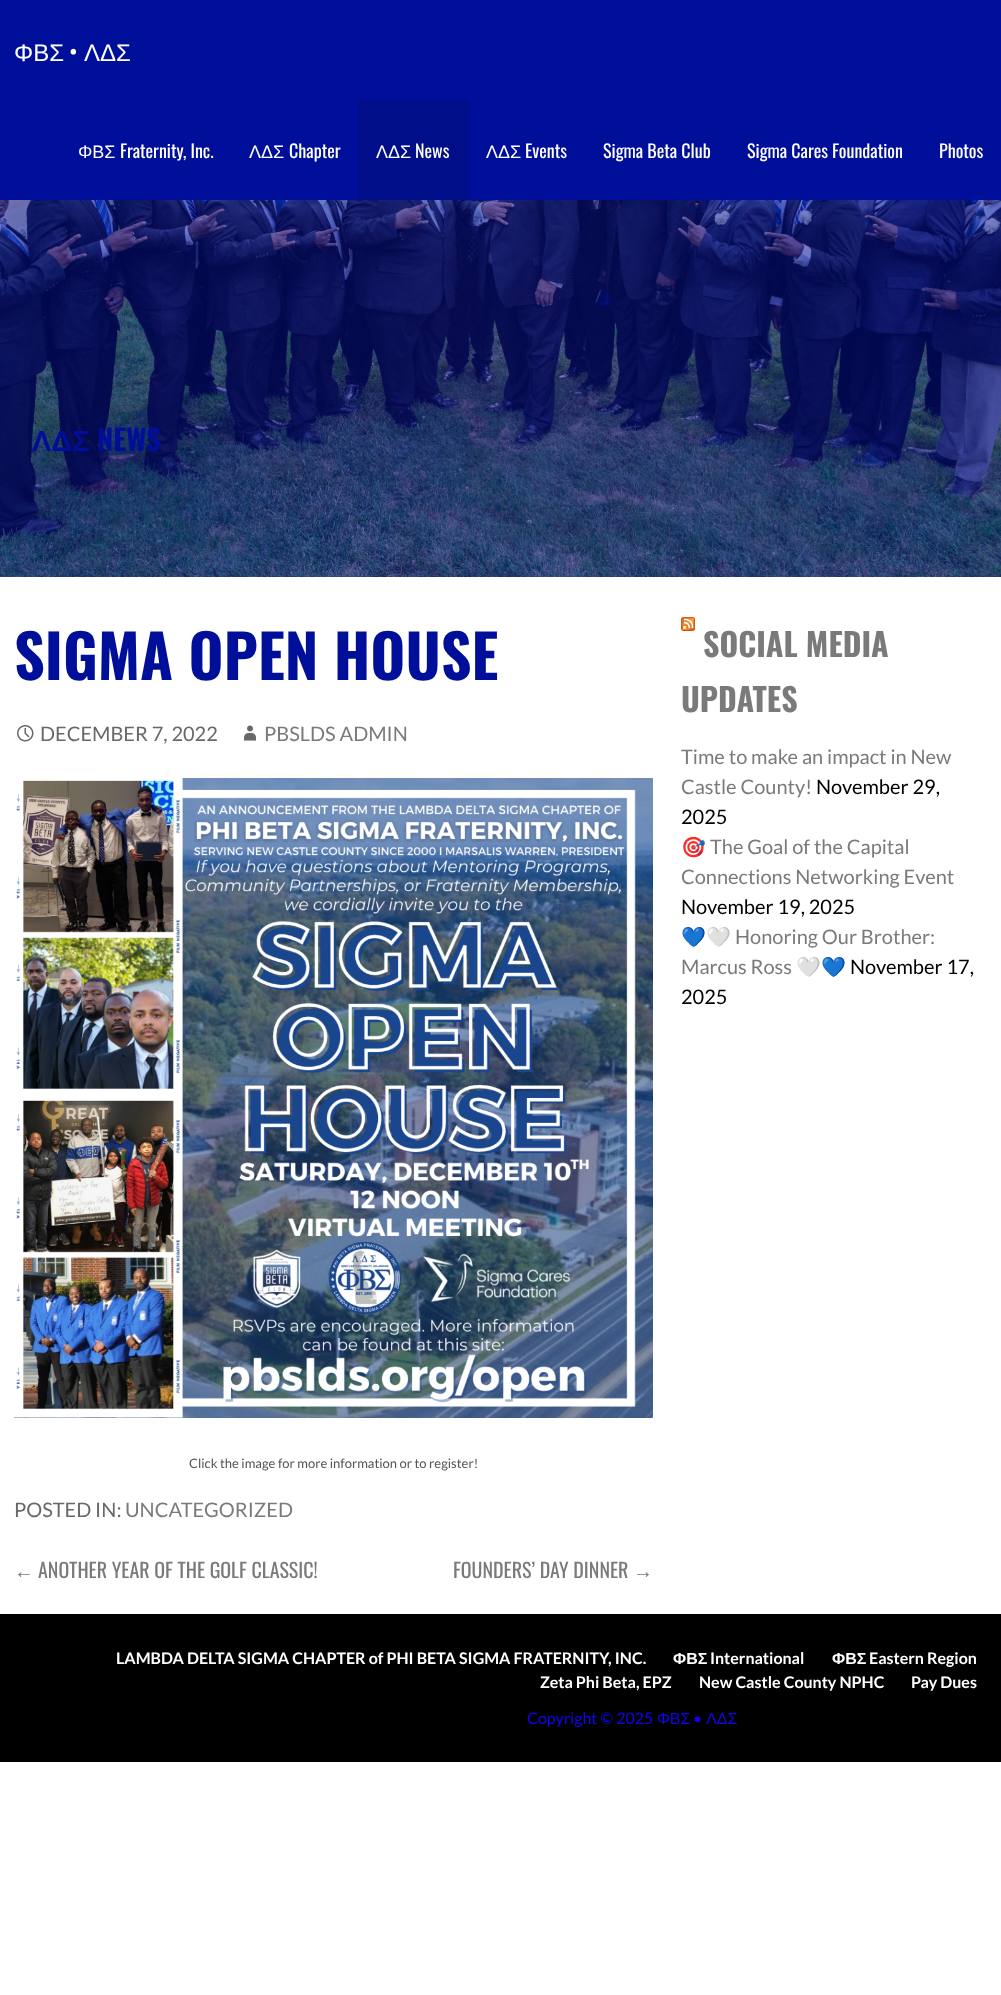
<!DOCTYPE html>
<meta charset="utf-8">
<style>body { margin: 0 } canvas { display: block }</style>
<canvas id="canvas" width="1001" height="1995"></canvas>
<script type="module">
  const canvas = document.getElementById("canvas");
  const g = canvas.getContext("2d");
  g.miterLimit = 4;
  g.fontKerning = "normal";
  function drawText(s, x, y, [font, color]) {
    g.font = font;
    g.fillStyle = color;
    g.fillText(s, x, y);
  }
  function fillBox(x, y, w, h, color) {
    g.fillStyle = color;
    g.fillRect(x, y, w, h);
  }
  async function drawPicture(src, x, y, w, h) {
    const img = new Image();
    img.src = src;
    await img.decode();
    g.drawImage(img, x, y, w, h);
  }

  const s1 = ["24px Liberation Sans", "#FFFFFF"];
  const s2 = ["24px Oswald", "#FFFFFF"];
  const s3 = ["18px Liberation Sans", "#FFFFFF"];
  const s4 = ["18px Oswald", "#FFFFFF"];
  const s5 = ["bold 29px Liberation Sans", "#000F99"];
  const s6 = ["bold 29px Oswald", "#000F99"];
  const s7 = ["bold 60px Oswald", "#000F99"];
  const s8 = ["20px Lato", "#686868"];
  const s9 = ["20px Lato", "#7A7A7A"];
  const s10 = ["13px Lato", "#555555"];
  const s11 = ["20px Liberation Serif", "#7A7A7A"];
  const s12 = ["20px Oswald", "#7A7A7A"];
  const s13 = ["bold 32px Oswald", "#7A7A7A"];
  const s14 = ["20px Lato", "#000000"];
  const s15 = ["20px Noto Color Emoji", "#7A7A7A"];
  const s16 = ["bold 16px Lato", "#FFFFFF"];
  const s17 = ["bold 16px Liberation Sans", "#FFFFFF"];
  const s18 = ["16px Lato", "#1400F4"];
  const s19 = ["16px Liberation Sans", "#1400F4"];

  fillBox(0, 0, 1001, 1995, "#FFFFFF");
  fillBox(0, 0, 1001, 200, "#000F99");
  drawText("ΦΒΣ", 14, 61, s1);
  drawText("•", 69, 61, s2);
  drawText("ΛΔΣ", 84, 61, s1);
  drawText("ΦΒΣ", 78, 158, s3);
  drawText("Fraternity, Inc.", 120, 158, s4);
  drawText("ΛΔΣ", 249, 158, s3);
  drawText("Chapter", 289, 158, s4);
  fillBox(358, 100, 110, 100, "#000E8A");
  drawText("ΛΔΣ", 376, 158, s3);
  drawText("News", 415, 158, s4);
  drawText("ΛΔΣ", 486, 158, s3);
  drawText("Events", 525, 158, s4);
  drawText("Sigma Beta Club", 603, 158, s4);
  drawText("Sigma Cares Foundation", 747, 158, s4);
  drawText("Photos", 939, 158, s4);
  await drawPicture("pic1.png", 0, 200, 1001, 377);
  drawText("ΛΔΣ", 32, 451, s5);
  drawText("NEWS", 97, 451, s6);
  drawText("SIGMA OPEN HOUSE", 14, 680, s7);
  await drawPicture("pic2.png", 17, 725, 17, 17);
  drawText("DECEMBER 7, 2022", 40, 741, s8);
  await drawPicture("pic3.png", 244, 725, 12, 16);
  drawText("PBSLDS ADMIN", 264, 741, s9);
  await drawPicture("pic4.png", 14, 778, 639, 640);
  drawText("Click the image for more information or to register!", 189, 1468, s10);
  drawText("POSTED IN:", 14, 1517, s8);
  drawText("UNCATEGORIZED", 125, 1517, s9);
  drawText("←", 14, 1578, s11);
  drawText("ANOTHER YEAR OF THE GOLF CLASSIC!", 38, 1578, s12);
  drawText("FOUNDERS’ DAY DINNER", 453, 1578, s12);
  drawText("→", 633, 1578, s11);
  await drawPicture("pic5.png", 681, 617, 14, 14);
  drawText("SOCIAL MEDIA", 703, 657, s13);
  drawText("UPDATES", 681, 712, s13);
  drawText("Time to make an impact in New", 681, 764, s9);
  drawText("Castle County!", 681, 794, s9);
  drawText("November 29,", 816, 794, s14);
  drawText("2025", 681, 824, s14);
  drawText("🎯", 681, 854, s15);
  drawText("The Goal of the Capital", 710, 854, s9);
  drawText("Connections Networking Event", 681, 884, s9);
  drawText("November 19, 2025", 681, 914, s14);
  drawText("💙🤍", 681, 944, s15);
  drawText("Honoring Our Brother:", 735, 944, s9);
  drawText("Marcus Ross", 681, 974, s9);
  drawText("🤍💙", 796, 974, s15);
  drawText("November 17,", 850, 974, s14);
  drawText("2025", 681, 1004, s14);
  fillBox(0, 1614, 1001, 148, "#000000");
  drawText("LAMBDA DELTA SIGMA CHAPTER of PHI BETA SIGMA FRATERNITY, INC.", 116, 1664, s16);
  drawText("ΦΒΣ", 673, 1664, s17);
  drawText("International", 710, 1664, s16);
  drawText("ΦΒΣ", 832, 1664, s17);
  drawText("Eastern Region", 869, 1664, s16);
  drawText("Zeta Phi Beta, EPZ", 540, 1688, s16);
  drawText("New Castle County NPHC", 699, 1688, s16);
  drawText("Pay Dues", 911, 1688, s16);
  drawText("Copyright © 2025", 527, 1724, s18);
  drawText("ΦΒΣ", 657, 1724, s19);
  drawText("•", 693, 1724, s18);
  drawText("ΛΔΣ", 706, 1724, s19);
</script>
